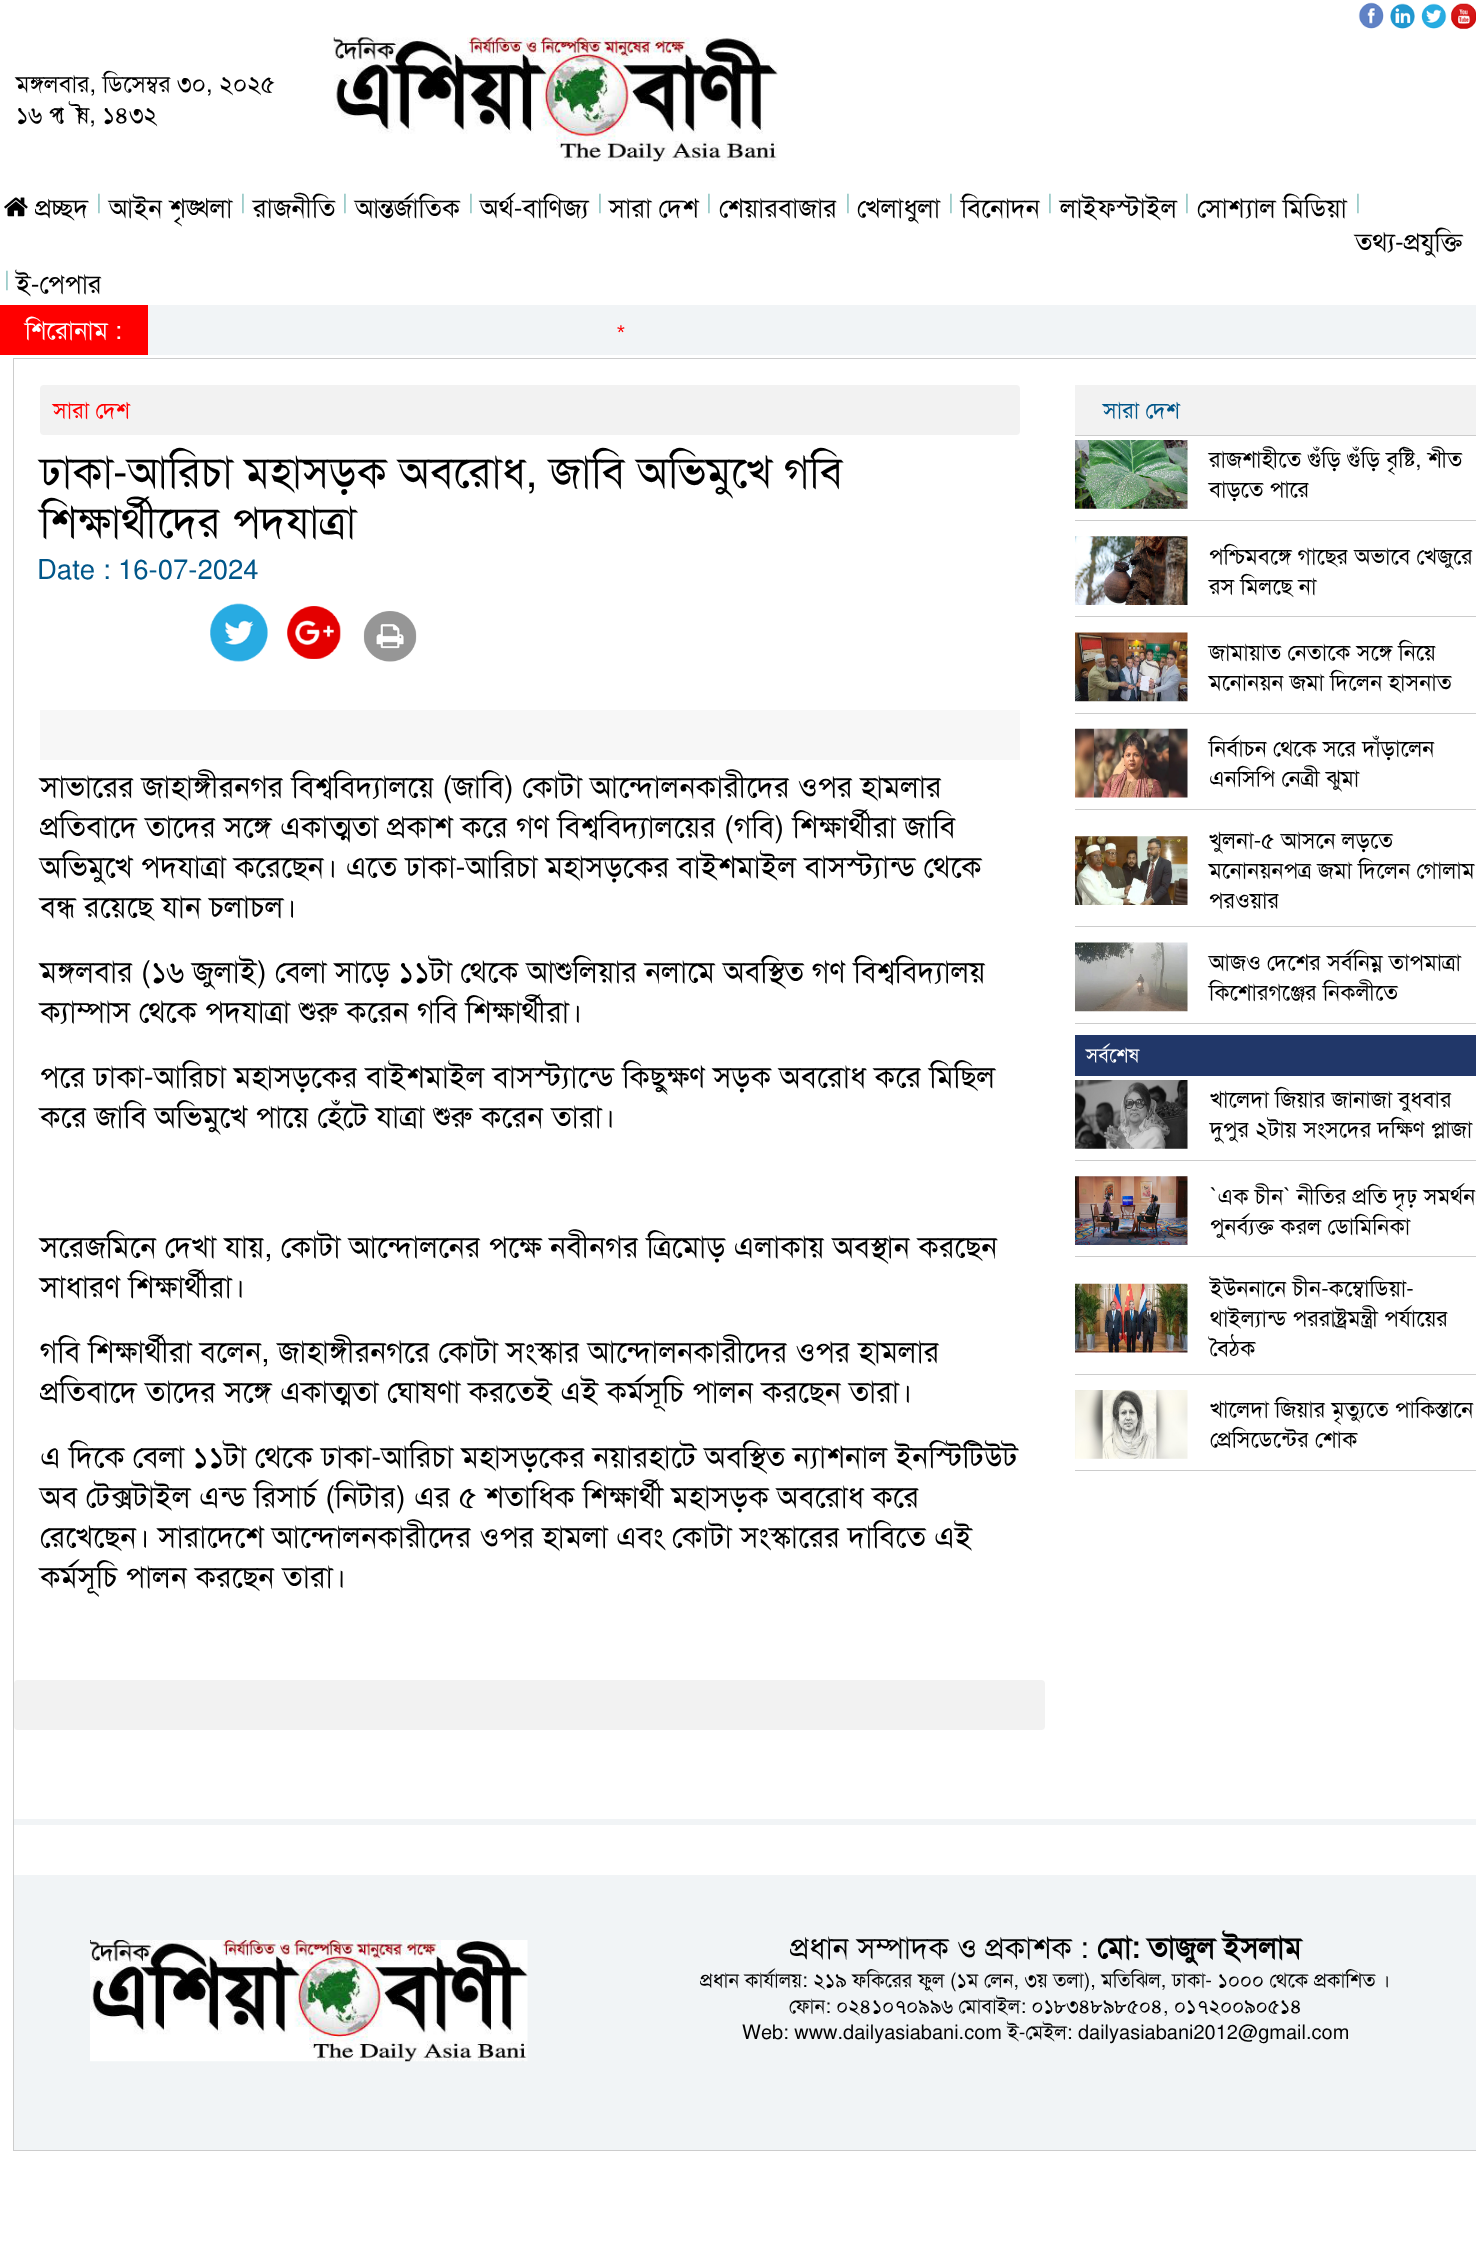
<!DOCTYPE html>
<meta charset="utf-8">
<style>body { margin: 0 } canvas { display: block }</style>
<canvas id="canvas" width="1476" height="2261"></canvas>
<script type="module">
  const canvas = document.getElementById("canvas");
  const g = canvas.getContext("2d");
  g.miterLimit = 4;
  g.fontKerning = "normal";
  function drawText(s, x, y, [font, color]) {
    g.font = font;
    g.fillStyle = color;
    g.fillText(s, x, y);
  }
  function fillBox(x, y, w, h, color) {
    g.fillStyle = color;
    g.fillRect(x, y, w, h);
  }
  function fillRounded(x, y, w, h, r, color) {
    g.fillStyle = color;
    g.beginPath();
    g.roundRect(x, y, w, h, r);
    g.fill();
  }
  async function drawPicture(src, x, y, w, h) {
    const img = new Image();
    img.src = src;
    await img.decode();
    g.drawImage(img, x, y, w, h);
  }

  const s1 = ["23.75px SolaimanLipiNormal", "#000000"];
  const s2 = ["26.25px SolaimanLipiNormal", "#000000"];
  const s3 = ["bold 20px SolaimanLipiNormal", "#9FCDCB"];
  const s4 = ["25px SolaimanLipiNormal", "#FFFFFF"];
  const s5 = ["20px Liberation Sans", "#FF0000"];
  const s6 = ["22.5px SolaimanLipiNormal", "#FF0000"];
  const s7 = ["43.75px SolaimanLipiNormal", "#000000"];
  const s8 = ["27.5px SolaimanLipiNormal", "#005689"];
  const s9 = ["30px SolaimanLipiNormal", "#000000"];
  const s10 = ["22.5px SolaimanLipiNormal", "#005689"];
  const s11 = ["22.5px SolaimanLipiNormal", "#000000"];
  const s12 = ["20px SolaimanLipiNormal", "#FFFFFF"];
  const s13 = ["bold 30px SolaimanLipiNormal", "#000000"];
  const s14 = ["20px SolaimanLipiNormal", "#000000"];

  fillBox(0, 0, 1476, 2261, "#FFFFFF");
  await drawPicture("pic1.png", 1358, 2, 26, 27);
  await drawPicture("pic2.png", 1390, 3, 25, 26);
  await drawPicture("pic3.png", 1421, 3, 26, 26);
  await drawPicture("pic4.png", 1451, 3, 25, 26);
  drawText("মঙ্গলবার, ডিসেম্বর ৩০, ২০২৫", 16, 92, s1);
  drawText("১৬ পৌষ, ১৪৩২", 16, 123, s1);
  await drawPicture("pic5.png", 333, 37, 445, 125);
  await drawPicture("pic6.png", 4, 197, 24, 20);
  drawText("প্রচ্ছদ", 35, 217, s2);
  drawText("|", 96, 209, s3);
  drawText("আইন শৃঙ্খলা", 109, 217, s2);
  drawText("|", 240, 209, s3);
  drawText("রাজনীতি", 253, 217, s2);
  drawText("|", 342, 209, s3);
  drawText("আন্তর্জাতিক", 355, 217, s2);
  drawText("|", 468, 209, s3);
  drawText("অর্থ-বাণিজ্য", 480, 217, s2);
  drawText("|", 597, 209, s3);
  drawText("সারা দেশ", 609, 217, s2);
  drawText("|", 706, 209, s3);
  drawText("শেয়ারবাজার", 719, 217, s2);
  drawText("|", 845, 209, s3);
  drawText("খেলাধুলা", 857, 217, s2);
  drawText("|", 948, 209, s3);
  drawText("বিনোদন", 961, 217, s2);
  drawText("|", 1047, 209, s3);
  drawText("লাইফস্টাইল", 1060, 217, s2);
  drawText("|", 1184, 209, s3);
  drawText("সোশ্যাল মিডিয়া", 1197, 217, s2);
  drawText("|", 1355, 209, s3);
  drawText("তথ্য-প্রযুক্তি", 1355, 251, s2);
  drawText("|", 4, 286, s3);
  drawText("ই-পেপার", 16, 293, s2);
  fillBox(0, 305, 148, 50, "#FF0000");
  drawText("শিরোনাম :", 25, 339, s4);
  fillBox(148, 305, 1328, 50, "#F1F4F6");
  drawText("*", 617, 339, s5);
  fillBox(13, 358, 1463, 1793, "#CCCCCC");
  fillBox(14, 359, 1462, 1516, "#FFFFFF");
  fillRounded(40, 385, 980, 50, 4, "#F2F2F2");
  drawText("সারা দেশ", 53, 418, s6);
  drawText("ঢাকা-আরিচা মহাসড়ক অবরোধ, জাবি অভিমুখে গবি", 40, 487, s7);
  drawText("শিক্ষার্থীদের পদযাত্রা", 40, 537, s7);
  drawText("Date : 16-07-2024", 37, 579, s8);
  await drawPicture("pic7.png", 210, 603, 58, 59);
  await drawPicture("pic8.png", 287, 606, 54, 53);
  await drawPicture("pic9.png", 363, 611, 54, 51);
  fillBox(40, 710, 980, 50, "#F7F7F7");
  drawText("সাভারের জাহাঙ্গীরনগর বিশ্ববিদ্যালয়ে (জাবি) কোটা আন্দোলনকারীদের ওপর হামলার", 40, 797, s9);
  drawText("প্রতিবাদে তাদের সঙ্গে একাত্মতা প্রকাশ করে গণ বিশ্ববিদ্যালয়ের (গবি) শিক্ষার্থীরা জাবি", 40, 837, s9);
  drawText("অভিমুখে পদযাত্রা করেছেন। এতে ঢাকা-আরিচা মহাসড়কের বাইশমাইল বাসস্ট্যান্ড থেকে", 40, 877, s9);
  drawText("বন্ধ রয়েছে যান চলাচল।", 40, 917, s9);
  drawText("মঙ্গলবার (১৬ জুলাই) বেলা সাড়ে ১১টা থেকে আশুলিয়ার নলামে অবস্থিত গণ বিশ্ববিদ্যালয়", 40, 982, s9);
  drawText("ক্যাম্পাস থেকে পদযাত্রা শুরু করেন গবি শিক্ষার্থীরা।", 40, 1022, s9);
  drawText("পরে ঢাকা-আরিচা মহাসড়কের বাইশমাইল বাসস্ট্যান্ডে কিছুক্ষণ সড়ক অবরোধ করে মিছিল", 40, 1087, s9);
  drawText("করে জাবি অভিমুখে পায়ে হেঁটে যাত্রা শুরু করেন তারা।", 40, 1127, s9);
  drawText("সরেজমিনে দেখা যায়, কোটা আন্দোলনের পক্ষে নবীনগর ত্রিমোড় এলাকায় অবস্থান করছেন", 40, 1257, s9);
  drawText("সাধারণ শিক্ষার্থীরা।", 40, 1297, s9);
  drawText("গবি শিক্ষার্থীরা বলেন, জাহাঙ্গীরনগরে কোটা সংস্কার আন্দোলনকারীদের ওপর হামলার", 40, 1362, s9);
  drawText("প্রতিবাদে তাদের সঙ্গে একাত্মতা ঘোষণা করতেই এই কর্মসূচি পালন করছেন তারা।", 40, 1402, s9);
  drawText("এ দিকে বেলা ১১টা থেকে ঢাকা-আরিচা মহাসড়কের নয়ারহাটে অবস্থিত ন্যাশনাল ইনস্টিটিউট", 40, 1467, s9);
  drawText("অব টেক্সটাইল এন্ড রিসার্চ (নিটার) এর ৫ শতাধিক শিক্ষার্থী মহাসড়ক অবরোধ করে", 40, 1507, s9);
  drawText("রেখেছেন। সারাদেশে আন্দোলনকারীদের ওপর হামলা এবং কোটা সংস্কারের দাবিতে এই", 40, 1547, s9);
  drawText("কর্মসূচি পালন করছেন তারা।", 40, 1587, s9);
  fillRounded(14, 1680, 1031, 50, 4, "#F2F2F2");
  fillBox(1075, 385, 401, 50, "#F2F2F2");
  drawText("সারা দেশ", 1103, 418, s10);
  fillBox(1075, 435, 401, 1, "#CCCCCC");
  await drawPicture("pic10.png", 1075, 440, 113, 69);
  drawText("রাজশাহীতে গুঁড়ি গুঁড়ি বৃষ্টি, শীত", 1209, 467, s11);
  drawText("বাড়তে পারে", 1209, 497, s11);
  fillBox(1075, 520, 401, 1, "#CCCCCC");
  await drawPicture("pic11.png", 1075, 536, 113, 69);
  drawText("পশ্চিমবঙ্গে গাছের অভাবে খেজুরে", 1209, 564, s11);
  drawText("রস মিলছে না", 1209, 594, s11);
  fillBox(1075, 616, 401, 1, "#CCCCCC");
  await drawPicture("pic12.png", 1075, 632, 113, 70);
  drawText("জামায়াত নেতাকে সঙ্গে নিয়ে", 1209, 660, s11);
  drawText("মনোনয়ন জমা দিলেন হাসনাত", 1209, 690, s11);
  fillBox(1075, 713, 401, 1, "#CCCCCC");
  await drawPicture("pic13.png", 1075, 728, 113, 70);
  drawText("নির্বাচন থেকে সরে দাঁড়ালেন", 1209, 756, s11);
  drawText("এনসিপি নেত্রী ঝুমা", 1209, 786, s11);
  fillBox(1075, 809, 401, 1, "#CCCCCC");
  await drawPicture("pic14.png", 1075, 836, 113, 69);
  drawText("খুলনা-৫ আসনে লড়তে", 1209, 848, s11);
  drawText("মনোনয়নপত্র জমা দিলেন গোলাম", 1209, 878, s11);
  drawText("পরওয়ার", 1209, 908, s11);
  fillBox(1075, 926, 401, 1, "#CCCCCC");
  await drawPicture("pic15.png", 1075, 942, 113, 70);
  drawText("আজও দেশের সর্বনিম্ন তাপমাত্রা", 1209, 970, s11);
  drawText("কিশোরগঞ্জের নিকলীতে", 1209, 1000, s11);
  fillBox(1075, 1023, 401, 1, "#CCCCCC");
  fillBox(1075, 1035, 401, 41, "#213769");
  drawText("সর্বশেষ", 1086, 1062, s12);
  await drawPicture("pic16.png", 1075, 1080, 113, 69);
  drawText("খালেদা জিয়ার জানাজা বুধবার", 1210, 1107, s11);
  drawText("দুপুর ২টায় সংসদের দক্ষিণ প্লাজা", 1210, 1137, s11);
  fillBox(1075, 1160, 401, 1, "#CCCCCC");
  await drawPicture("pic17.png", 1075, 1176, 113, 69);
  drawText("`এক চীন` নীতির প্রতি দৃঢ় সমর্থন", 1210, 1204, s11);
  drawText("পুনর্ব্যক্ত করল ডোমিনিকা", 1210, 1234, s11);
  fillBox(1075, 1256, 401, 1, "#CCCCCC");
  await drawPicture("pic18.png", 1075, 1283, 113, 70);
  drawText("ইউননানে চীন-কম্বোডিয়া-", 1210, 1296, s11);
  drawText("থাইল্যান্ড পররাষ্ট্রমন্ত্রী পর্যায়ের", 1210, 1326, s11);
  drawText("বৈঠক", 1210, 1356, s11);
  fillBox(1075, 1374, 401, 1, "#CCCCCC");
  await drawPicture("pic19.png", 1075, 1390, 113, 69);
  drawText("খালেদা জিয়ার মৃত্যুতে পাকিস্তানে", 1210, 1417, s11);
  drawText("প্রেসিডেন্টের শোক", 1210, 1447, s11);
  fillBox(1075, 1470, 401, 1, "#CCCCCC");
  fillBox(14, 1819, 1462, 6, "#F1F4F6");
  fillBox(14, 1875, 1462, 275, "#F1F4F6");
  await drawPicture("pic20.png", 90, 1940, 438, 122);
  drawText("প্রধান সম্পাদক ও প্রকাশক :", 790, 1958, s9);
  drawText("মো: তাজুল ইসলাম", 1097, 1958, s13);
  drawText("প্রধান কার্যালয়: ২১৯ ফকিরের ফুল (১ম লেন, ৩য় তলা), মতিঝিল, ঢাকা- ১০০০ থেকে প্রকাশিত ।", 700, 1987, s14);
  drawText("ফোন: ০২৪১০৭০৯৯৬ মোবাইল: ০১৮৩৪৮৯৮৫০৪, ০১৭২০০৯০৫১৪", 789, 2013, s14);
  drawText("Web: www.dailyasiabani.com ই-মেইল: dailyasiabani2012@gmail.com", 742, 2039, s14);
</script>
